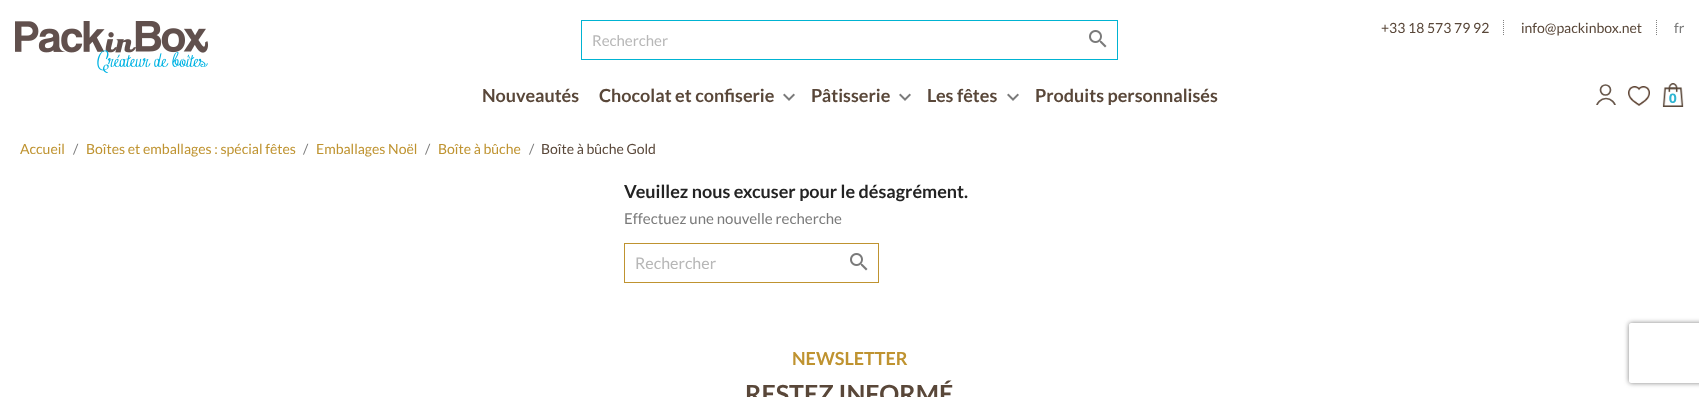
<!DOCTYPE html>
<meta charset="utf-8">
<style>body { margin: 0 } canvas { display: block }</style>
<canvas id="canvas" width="1699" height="397"></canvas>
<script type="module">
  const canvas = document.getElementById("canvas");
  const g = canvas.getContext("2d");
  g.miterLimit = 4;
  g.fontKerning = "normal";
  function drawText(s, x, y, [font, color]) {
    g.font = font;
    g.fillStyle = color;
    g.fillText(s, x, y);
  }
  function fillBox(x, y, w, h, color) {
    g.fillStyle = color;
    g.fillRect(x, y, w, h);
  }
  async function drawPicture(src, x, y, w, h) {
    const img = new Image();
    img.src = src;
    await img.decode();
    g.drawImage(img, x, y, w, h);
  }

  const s1 = ["14px Lato", "#594739"];
  const s2 = ["14px Lato", "#7A7A7A"];
  const s3 = ["15px Lato", "#B7B7B7"];
  const s4 = ["bold 18px Lato", "#594739"];
  const s5 = ["900 13px Lato", "#2FB5D2"];
  const s6 = ["14px Lato", "#BF9330"];
  const s7 = ["bold 18px Lato", "#232323"];
  const s8 = ["15px Lato", "#7A7A7A"];
  const s9 = ["16px Lato", "#B7B7B7"];
  const s10 = ["bold 18px Lato", "#BF9330"];
  const s11 = ["bold 25px Lato", "#594739"];

  fillBox(0, 0, 1699, 397, "#FFFFFF");
  await drawPicture("pic1.png", 15, 21, 193, 52);
  g.beginPath();
  g.moveTo(1503.5, 20);
  g.lineTo(1503.5, 36);
  g.strokeStyle = "#828282";
  g.setLineDash([1, 1]);
  g.stroke();
  drawText("+33 18 573 79 92", 1381, 33, s1);
  g.beginPath();
  g.moveTo(1656.5, 20);
  g.lineTo(1656.5, 36);
  g.stroke();
  drawText("info@packinbox.net", 1521, 33, s1);
  drawText("fr", 1674, 33, s2);
  g.strokeStyle = "#00B3D2";
  g.setLineDash([]);
  g.strokeRect(581.5, 20.5, 536, 39);
  drawText("Rechercher", 592, 46, s3);
  await drawPicture("pic2.png", 1089, 30, 18, 18);
  drawText("Nouveautés", 482, 102, s4);
  drawText("Chocolat et confiserie", 599, 102, s4);
  await drawPicture("pic3.png", 783, 93, 12, 8);
  drawText("Pâtisserie", 811, 102, s4);
  await drawPicture("pic3.png", 899, 93, 12, 8);
  drawText("Les fêtes", 927, 102, s4);
  await drawPicture("pic3.png", 1007, 93, 12, 8);
  drawText("Produits personnalisés", 1035, 102, s4);
  g.beginPath();
  g.arc(1605.5, 90, 5, 0, Math.PI * 2);
  g.strokeStyle = "#69594D";
  g.lineWidth = 1.7;
  g.stroke();
  g.save();
  g.beginPath();
  g.rect(1596, 84, 20, 21);
  g.clip();
  g.beginPath();
  g.arc(1606, 108, 9.5, 0, Math.PI * 2);
  g.stroke();
  g.restore();
  await drawPicture("pic4.png", 1628, 86, 22, 20);
  await drawPicture("pic5.png", 1662, 83, 22, 24);
  drawText("0", 1669, 103, s5);
  drawText("Accueil", 20, 154, s6);
  drawText("/", 73, 154, s2);
  drawText("Boîtes et emballages : spécial fêtes", 86, 154, s6);
  drawText("/", 303, 154, s2);
  drawText("Emballages Noël", 316, 154, s6);
  drawText("/", 425, 154, s2);
  drawText("Boîte à bûche", 438, 154, s6);
  drawText("/", 529, 154, s2);
  drawText("Boîte à bûche Gold", 541, 154, s1);
  drawText("Veuillez nous excuser pour le désagrément.", 624, 198, s7);
  drawText("Effectuez une nouvelle recherche", 624, 224, s8);
  g.strokeStyle = "#BF9330";
  g.lineWidth = 1;
  g.strokeRect(624.5, 243.5, 254, 39);
  drawText("Rechercher", 635, 269, s9);
  await drawPicture("pic2.png", 850, 253, 18, 18);
  drawText("NEWSLETTER", 792, 365, s10);
  drawText("RESTEZ INFORMÉ", 745, 403, s11);
  g.save();
  g.beginPath();
  g.moveTo(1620, 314);
  g.lineTo(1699, 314);
  g.lineTo(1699, 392);
  g.lineTo(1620, 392);
  g.closePath();
  g.moveTo(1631, 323);
  g.lineTo(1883, 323);
  g.bezierCurveTo(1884, 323, 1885, 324, 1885, 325);
  g.lineTo(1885, 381);
  g.bezierCurveTo(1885, 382, 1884, 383, 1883, 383);
  g.lineTo(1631, 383);
  g.bezierCurveTo(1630, 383, 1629, 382, 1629, 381);
  g.lineTo(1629, 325);
  g.bezierCurveTo(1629, 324, 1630, 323, 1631, 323);
  g.closePath();
  g.clip("evenodd");
  g.fillStyle = "#808080";
  g.filter = "blur(2.5px)";
  g.beginPath();
  g.roundRect(1629, 323, 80, 60, 2);
  g.fill();
  g.filter = "none";
  g.restore();
</script>
